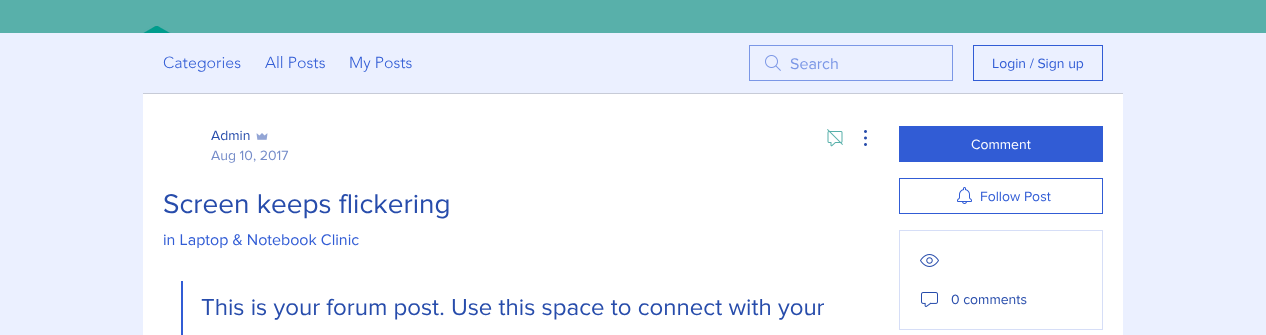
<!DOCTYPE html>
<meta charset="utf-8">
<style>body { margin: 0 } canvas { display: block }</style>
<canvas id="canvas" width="1266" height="335"></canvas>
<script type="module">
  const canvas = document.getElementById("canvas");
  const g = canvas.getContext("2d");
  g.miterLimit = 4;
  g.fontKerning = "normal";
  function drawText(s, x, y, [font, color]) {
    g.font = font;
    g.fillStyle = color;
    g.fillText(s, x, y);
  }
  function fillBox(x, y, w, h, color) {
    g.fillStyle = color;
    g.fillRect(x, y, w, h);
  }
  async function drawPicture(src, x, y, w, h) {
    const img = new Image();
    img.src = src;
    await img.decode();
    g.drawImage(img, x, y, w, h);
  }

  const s1 = ["300 16px 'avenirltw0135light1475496'", "#315CD5"];
  const s2 = ["16px 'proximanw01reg'", "#7B97E6"];
  const s3 = ["14px 'proximanw01reg'", "#315CD5"];
  const s4 = ["14px 'proximanw01reg'", "#274CAB"];
  const s5 = ["14px 'proximanw01reg'", "#758CC9"];
  const s6 = ["28px 'proximanw01reg'", "#274CAB"];
  const s7 = ["16px 'proximanw01reg'", "#315CD5"];
  const s8 = ["24px 'proximanw01reg'", "#274CAB"];
  const s9 = ["14px 'proximanw01reg'", "#FFFFFF"];

  fillBox(0, 0, 1266, 335, "#58B0AA");
  await drawPicture("pic1.png", 143, 26, 28, 7);
  fillBox(0, 33, 1266, 302, "#EBF0FF");
  fillBox(143, 93, 980, 1, "#C7CBD7");
  drawText("Categories", 163, 68, s1);
  drawText("All Posts", 265, 68, s1);
  drawText("My Posts", 349, 68, s1);
  await drawPicture("pic2.png", 765, 55, 16, 16);
  g.strokeStyle = "#7B97E6";
  g.strokeRect(749.5, 45.5, 203, 35);
  drawText("Search", 790, 69, s2);
  g.strokeStyle = "#315CD5";
  g.strokeRect(973.5, 45.5, 129, 35);
  drawText("Login / Sign up", 992, 68, s3);
  fillBox(143, 94, 980, 241, "#FFFFFF");
  drawText("Admin", 211, 140, s4);
  await drawPicture("pic3.png", 256, 133, 12, 7);
  drawText("Aug 10, 2017", 211, 160, s5);
  await drawPicture("pic4.png", 827, 129, 16, 18);
  await drawPicture("pic5.png", 864, 130, 3, 16);
  drawText("Screen keeps flickering", 163, 213, s6);
  drawText("in Laptop & Notebook Clinic", 163, 245, s7);
  fillBox(181, 281, 2, 54, "#315CD5");
  drawText("This is your forum post. Use this space to connect with your", 201, 315, s8);
  fillBox(899, 126, 204, 36, "#315CD5");
  drawText("Comment", 971, 149, s9);
  g.strokeRect(899.5, 178.5, 203, 35);
  await drawPicture("pic6.png", 957, 187, 15, 17);
  drawText("Follow Post", 980, 201, s3);
  g.strokeStyle = "#D6DEF7";
  g.strokeRect(899.5, 230.5, 203, 99);
  await drawPicture("pic7.png", 920, 254, 19, 13);
  await drawPicture("pic8.png", 921, 292, 17, 15);
  drawText("0 comments", 951, 304, s4);
</script>
